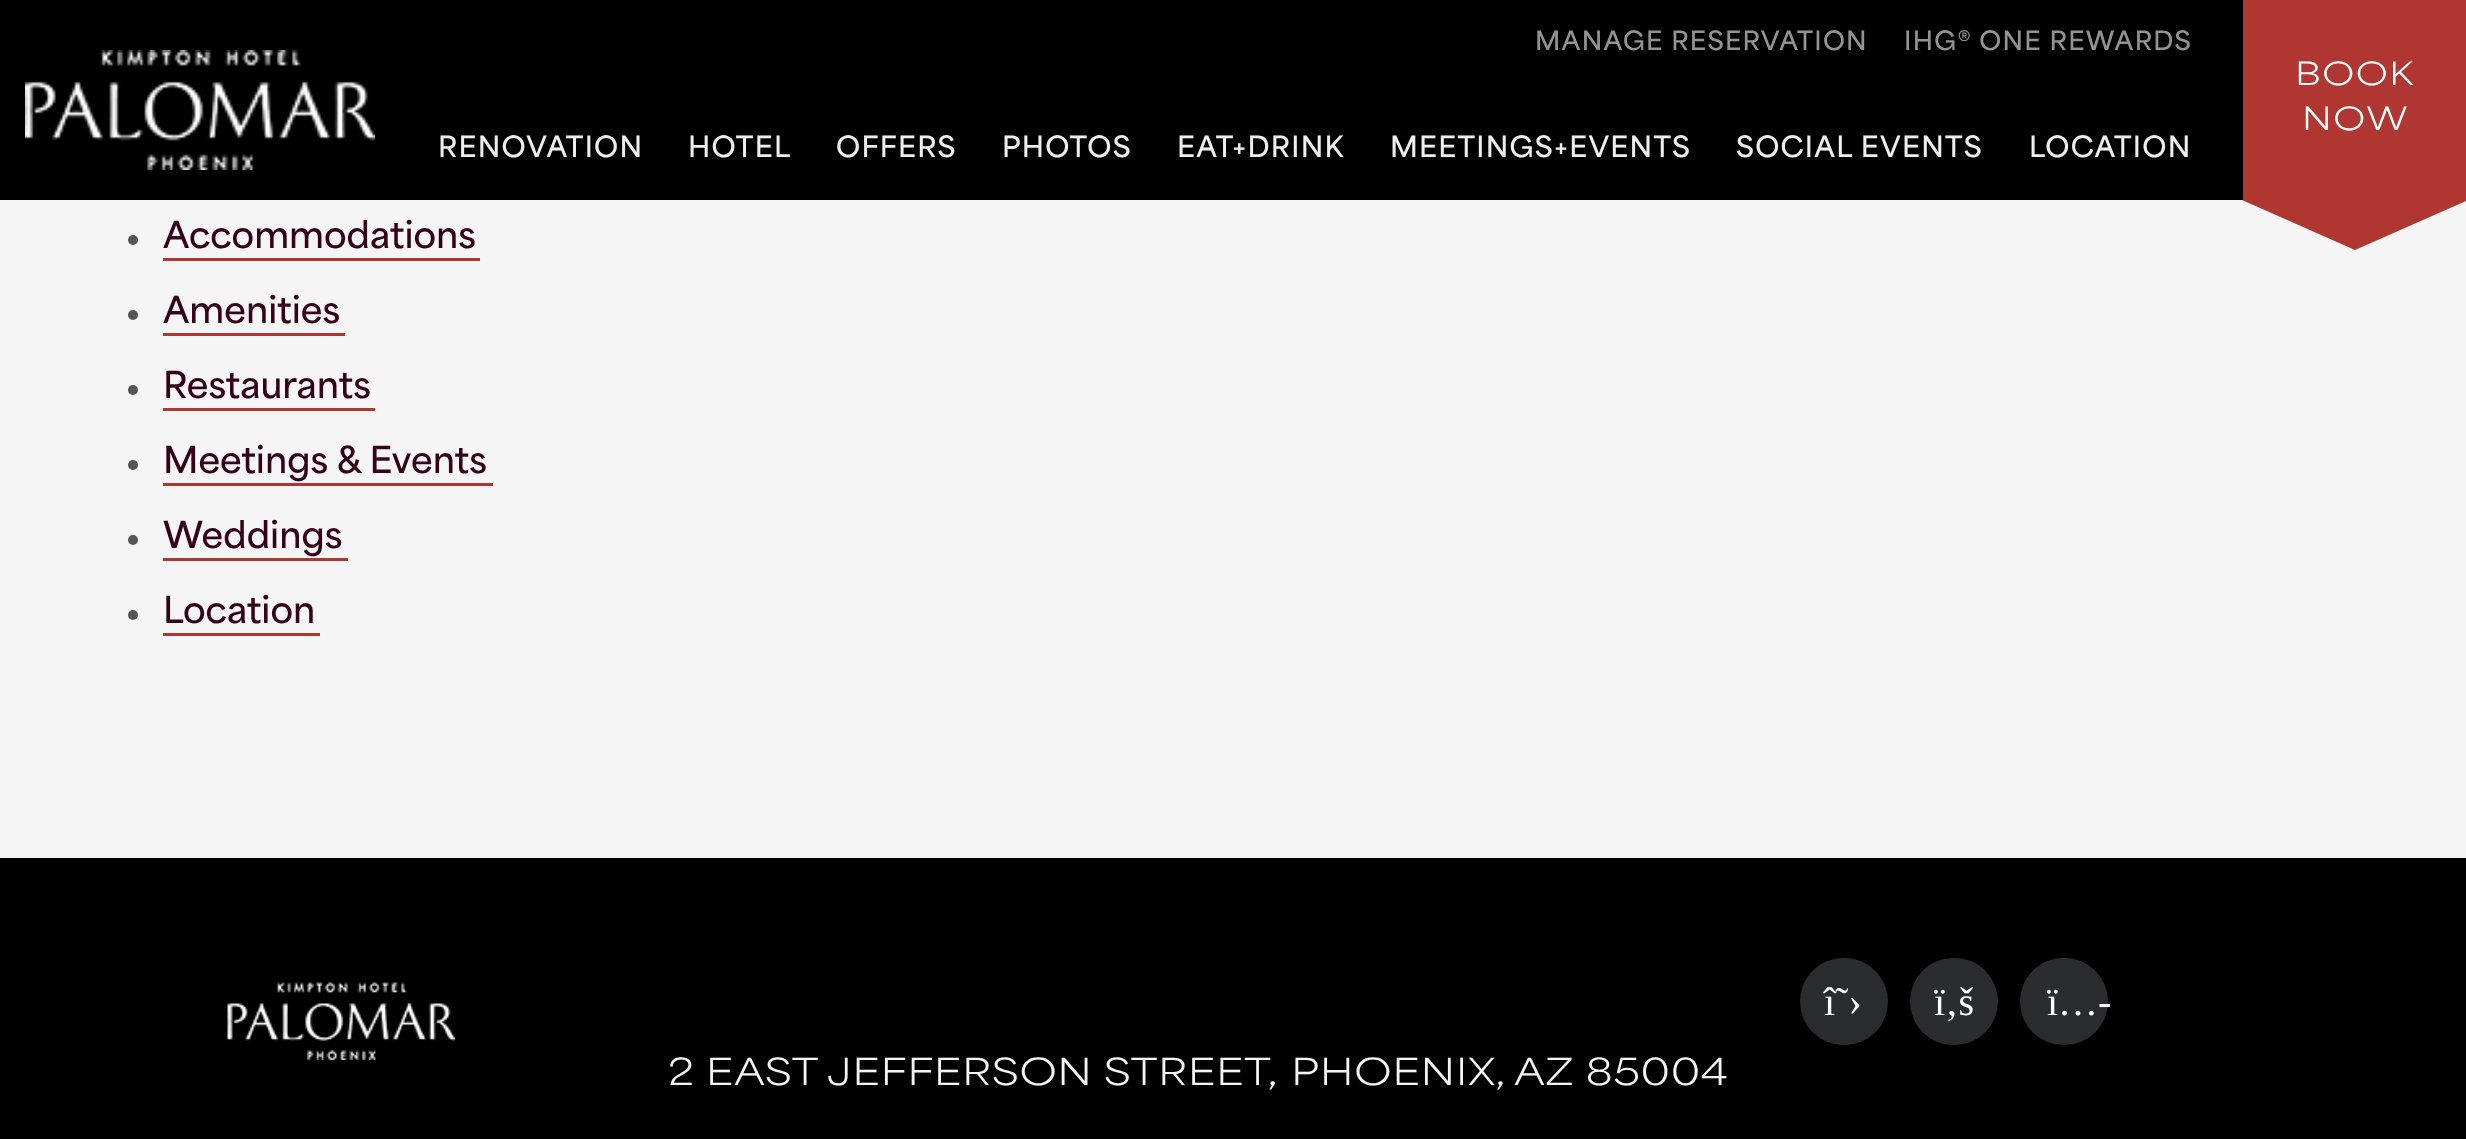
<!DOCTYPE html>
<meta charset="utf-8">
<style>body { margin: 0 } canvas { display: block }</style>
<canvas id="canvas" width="2466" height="1139"></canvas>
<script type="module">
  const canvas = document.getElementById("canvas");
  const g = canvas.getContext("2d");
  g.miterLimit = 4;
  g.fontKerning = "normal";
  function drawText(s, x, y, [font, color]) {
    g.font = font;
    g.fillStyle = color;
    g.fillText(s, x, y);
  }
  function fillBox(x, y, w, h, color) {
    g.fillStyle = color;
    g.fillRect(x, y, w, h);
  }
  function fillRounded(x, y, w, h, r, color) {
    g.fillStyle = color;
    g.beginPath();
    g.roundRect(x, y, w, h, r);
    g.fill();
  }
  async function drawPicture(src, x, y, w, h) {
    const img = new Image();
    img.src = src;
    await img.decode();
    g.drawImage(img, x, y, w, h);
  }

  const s1 = ["600 25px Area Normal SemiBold", "#929493"];
  const s2 = ["30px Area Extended", "#FFFFFF"];
  const s3 = ["600 27.5px Area Normal SemiBold", "#EEEEEE"];
  const s4 = ["600 35px Area Normal SemiBold", "#34021B"];
  const s5 = ["40px Liberation Serif", "#FFFFFF"];
  const s6 = ["35px Area Extended", "#F5F5F5"];

  fillBox(0, 0, 2466, 1139, "#F5F5F5");
  fillBox(0, 0, 2243, 200, "#000000");
  g.letterSpacing = "1.25px";
  drawText("MANAGE RESERVATION", 1535, 50, s1);
  drawText("IHG® ONE REWARDS", 1904, 50, s1);
  await drawPicture("pic1.png", 25, 50, 350, 120);
  fillBox(2243, 0, 223, 200, "#B03731");
  g.letterSpacing = "1.5px";
  drawText("BOOK", 2295, 85, s2);
  drawText("NOW", 2302, 130, s2);
  g.fillStyle = "#B03731";
  g.beginPath();
  g.moveTo(2242, 200);
  g.lineTo(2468, 200);
  g.lineTo(2355, 250);
  g.closePath();
  g.fill();
  g.letterSpacing = "1.25px";
  drawText("RENOVATION", 438, 157, s3);
  drawText("HOTEL", 688, 157, s3);
  drawText("OFFERS", 836, 157, s3);
  drawText("PHOTOS", 1002, 157, s3);
  drawText("EAT+DRINK", 1177, 157, s3);
  drawText("MEETINGS+EVENTS", 1390, 157, s3);
  drawText("SOCIAL EVENTS", 1736, 157, s3);
  drawText("LOCATION", 2029, 157, s3);
  g.fillStyle = "#53555B";
  g.beginPath();
  g.arc(133, 240, 5, 0, Math.PI * 2);
  g.fill();
  g.letterSpacing = "0px";
  drawText("Accommodations", 163, 248, s4);
  fillBox(163, 258, 317, 3, "#B03731");
  g.fillStyle = "#53555B";
  g.beginPath();
  g.arc(133, 315, 5, 0, Math.PI * 2);
  g.fill();
  drawText("Amenities", 163, 323, s4);
  fillBox(163, 333, 182, 3, "#B03731");
  g.fillStyle = "#53555B";
  g.beginPath();
  g.arc(133, 390, 5, 0, Math.PI * 2);
  g.fill();
  drawText("Restaurants", 163, 398, s4);
  fillBox(163, 408, 212, 3, "#B03731");
  g.fillStyle = "#53555B";
  g.beginPath();
  g.arc(133, 465, 5, 0, Math.PI * 2);
  g.fill();
  drawText("Meetings & Events", 163, 473, s4);
  fillBox(163, 483, 330, 3, "#B03731");
  g.fillStyle = "#53555B";
  g.beginPath();
  g.arc(133, 540, 5, 0, Math.PI * 2);
  g.fill();
  drawText("Weddings", 163, 548, s4);
  fillBox(163, 558, 185, 3, "#B03731");
  g.fillStyle = "#53555B";
  g.beginPath();
  g.arc(133, 615, 5, 0, Math.PI * 2);
  g.fill();
  drawText("Location", 163, 623, s4);
  fillBox(163, 633, 157, 3, "#B03731");
  fillBox(0, 858, 2466, 281, "#000000");
  await drawPicture("pic2.png", 227, 982, 228, 78);
  fillRounded(1800, 958, 88, 87, 43.5, "#2B2C30");
  drawText("î˜›", 1824, 1015, s5);
  fillRounded(1910, 958, 88, 87, 43.5, "#2B2C30");
  drawText("ï‚š", 1934, 1015, s5);
  fillRounded(2020, 958, 88, 87, 43.5, "#2B2C30");
  drawText("ï…-", 2047, 1015, s5);
  g.letterSpacing = "0.6px";
  g.wordSpacing = "-0.5px";
  drawText("2 EAST JEFFERSON STREET,", 668, 1085, s6);
  g.wordSpacing = "0px";
  drawText("PHOENIX,", 1291, 1085, s6);
  drawText("AZ 85004", 1514, 1085, s6);
</script>
